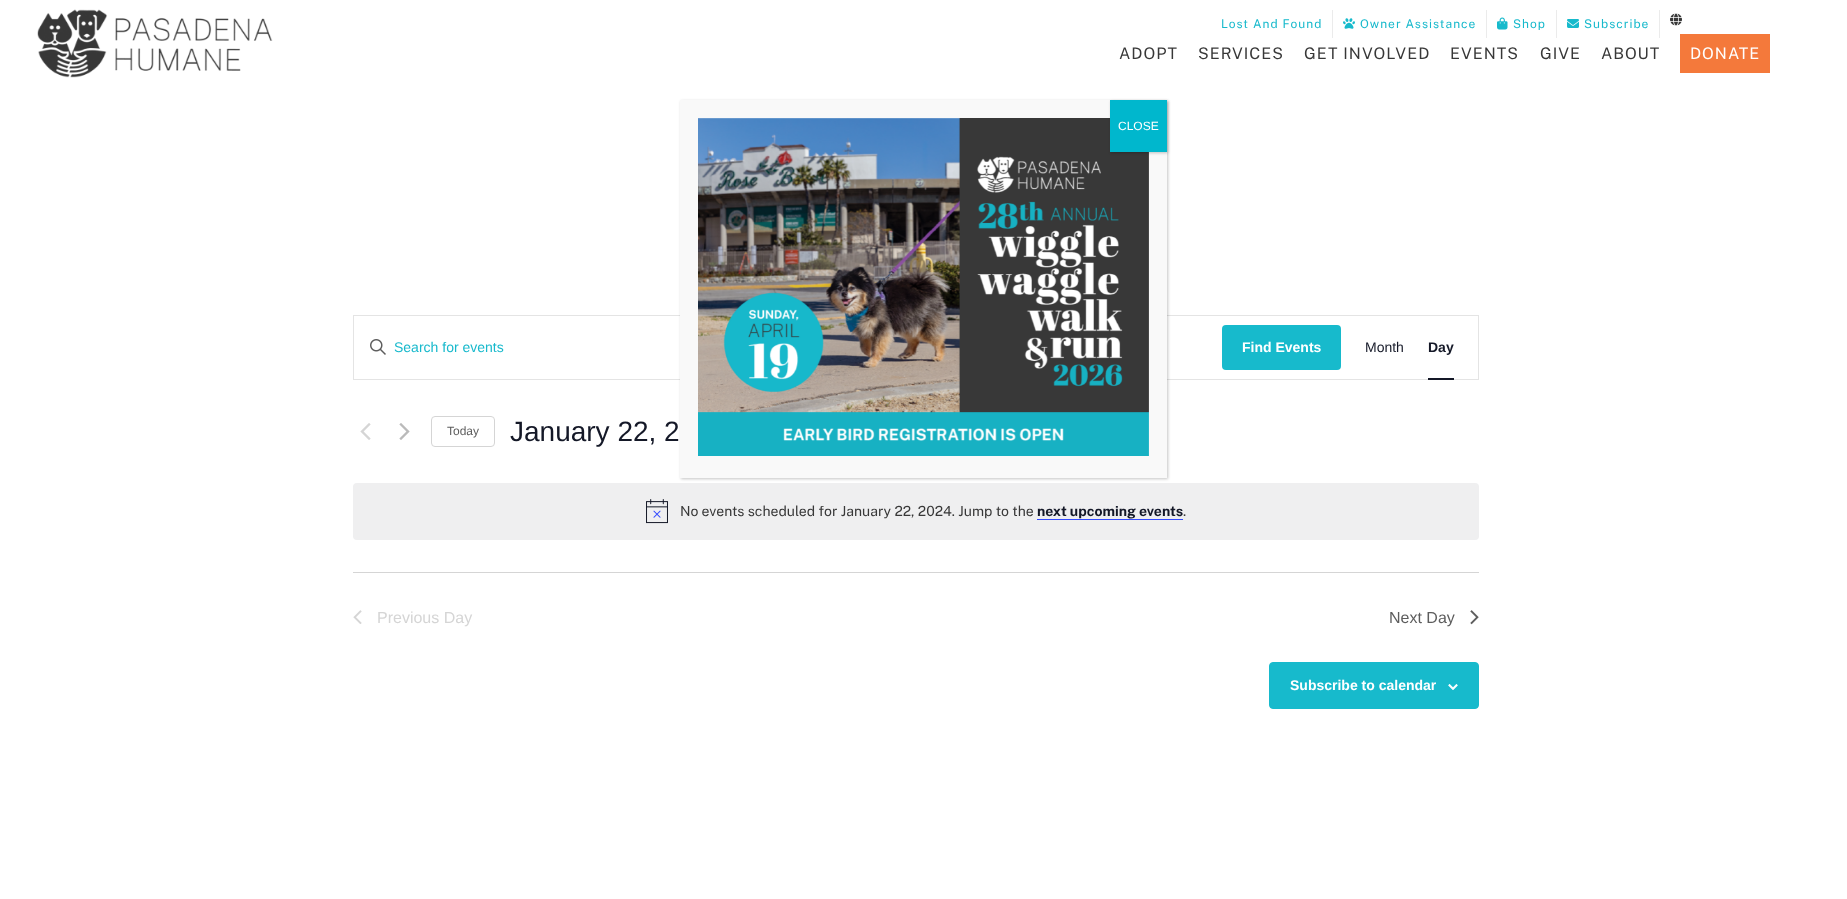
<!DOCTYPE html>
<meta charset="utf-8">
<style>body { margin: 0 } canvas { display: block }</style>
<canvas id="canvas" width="1847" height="899"></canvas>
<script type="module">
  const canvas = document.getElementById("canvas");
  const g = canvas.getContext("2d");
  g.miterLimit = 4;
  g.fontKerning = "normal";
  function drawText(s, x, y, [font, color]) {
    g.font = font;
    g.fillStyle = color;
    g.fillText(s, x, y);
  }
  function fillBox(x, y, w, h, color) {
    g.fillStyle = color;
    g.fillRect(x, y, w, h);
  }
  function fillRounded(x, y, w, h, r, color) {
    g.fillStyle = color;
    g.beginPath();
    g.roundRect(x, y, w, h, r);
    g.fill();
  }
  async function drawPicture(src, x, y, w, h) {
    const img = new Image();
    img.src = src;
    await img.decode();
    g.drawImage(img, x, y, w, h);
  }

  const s1 = ["12px Public Sans", "#17B9CC"];
  const s2 = ["16px Public Sans", "#383838"];
  const s3 = ["16px Public Sans", "#FFFFFF"];
  const s4 = ["14px Liberation Sans", "#17B9CC"];
  const s5 = ["bold 14px Liberation Sans", "#FFFFFF"];
  const s6 = ["14px Liberation Sans", "#141827"];
  const s7 = ["bold 14px Liberation Sans", "#141827"];
  const s8 = ["12px Liberation Sans", "#5D5D5D"];
  const s9 = ["28px Liberation Sans", "#141827"];
  const s10 = ["14px Public Sans", "#383838"];
  const s11 = ["bold 14px Public Sans", "#141827"];
  const s12 = ["16px Liberation Sans", "#D5D5D5"];
  const s13 = ["16px Liberation Sans", "#5D5D5D"];
  const s14 = ["12px Liberation Sans", "#FFFFFF"];

  fillBox(0, 0, 1847, 899, "#FFFFFF");
  fillBox(1332, 10, 1, 28, "#EBEBEB");
  g.letterSpacing = "1px";
  drawText("Lost And Found", 1221, 28, s1);
  fillBox(1486, 10, 1, 28, "#EBEBEB");
  await drawPicture("pic1.png", 1343, 18, 12, 11);
  drawText("Owner Assistance", 1360, 28, s1);
  fillBox(1556, 10, 1, 28, "#EBEBEB");
  await drawPicture("pic2.png", 1497, 17, 11, 13);
  drawText("Shop", 1513, 28, s1);
  fillBox(1659, 10, 1, 28, "#EBEBEB");
  await drawPicture("pic3.png", 1567, 19, 12, 9);
  drawText("Subscribe", 1584, 28, s1);
  await drawPicture("pic4.png", 1670, 13, 12, 13);
  await drawPicture("pic5.png", 37, 9, 236, 69);
  drawText("ADOPT", 1119, 59, s2);
  drawText("SERVICES", 1198, 59, s2);
  drawText("GET INVOLVED", 1304, 59, s2);
  drawText("EVENTS", 1450, 59, s2);
  drawText("GIVE", 1540, 59, s2);
  drawText("ABOUT", 1601, 59, s2);
  fillBox(1680, 34, 90, 39, "#F4793B");
  drawText("DONATE", 1690, 59, s3);
  g.strokeStyle = "#E4E4E4";
  g.strokeRect(353.5, 315.5, 1125, 64);
  await drawPicture("pic6.png", 370, 339, 16, 16);
  g.letterSpacing = "0px";
  drawText("Search for events", 394, 352, s4);
  fillRounded(1222, 325, 119, 45, 4, "#17BACC");
  drawText("Find Events", 1242, 352, s5);
  drawText("Month", 1365, 352, s6);
  drawText("Day", 1428, 352, s7);
  fillBox(1428, 378, 26, 2, "#141827");
  await drawPicture("pic7.png", 360, 423, 11, 17);
  await drawPicture("pic8.png", 399, 423, 11, 17);
  g.beginPath();
  g.roundRect(431.5, 416.5, 63, 30, 3.5);
  g.strokeStyle = "#D5D5D5";
  g.stroke();
  drawText("Today", 447, 435, s8);
  drawText("January 22, 2", 510, 441, s9);
  fillRounded(353, 483, 1126, 57, 4, "#EFEFF0");
  await drawPicture("pic9.png", 646, 499, 22, 25);
  drawText("No events scheduled for January 22, 2024. Jump to the", 680, 516, s10);
  drawText("next upcoming events", 1037, 516, s11);
  fillBox(1037, 519, 146, 1, "#334AFF");
  drawText(".", 1183, 516, s10);
  fillBox(353, 572, 1126, 1, "#D5D5D5");
  await drawPicture("pic10.png", 353, 610, 9, 14);
  drawText("Previous Day", 377, 623, s12);
  drawText("Next Day", 1389, 623, s13);
  await drawPicture("pic11.png", 1470, 610, 9, 15);
  g.fillStyle = "#17BACC";
  g.beginPath();
  g.roundRect(1269.5, 662.5, 209, 46, 3.5);
  g.fill();
  g.strokeStyle = "#17BACC";
  g.stroke();
  drawText("Subscribe to calendar", 1290, 690, s5);
  await drawPicture("pic12.png", 1448, 684, 10, 6);
  g.fillStyle = "rgba(2, 2, 2, 0.23)";
  g.filter = "blur(1.5px)";
  g.beginPath();
  g.rect(681, 101, 487, 378);
  g.fill();
  g.filter = "none";
  fillBox(680, 100, 487, 378, "#F9F9F9");
  await drawPicture("pic13.png", 698, 118, 451, 338);
  g.fillStyle = "rgba(2, 2, 2, 0.23)";
  g.filter = "blur(1.5px)";
  g.beginPath();
  g.rect(1111, 101, 57, 52);
  g.fill();
  g.filter = "none";
  fillBox(1110, 100, 57, 52, "#00B7CD");
  drawText("CLOSE", 1118, 130, s14);
</script>
